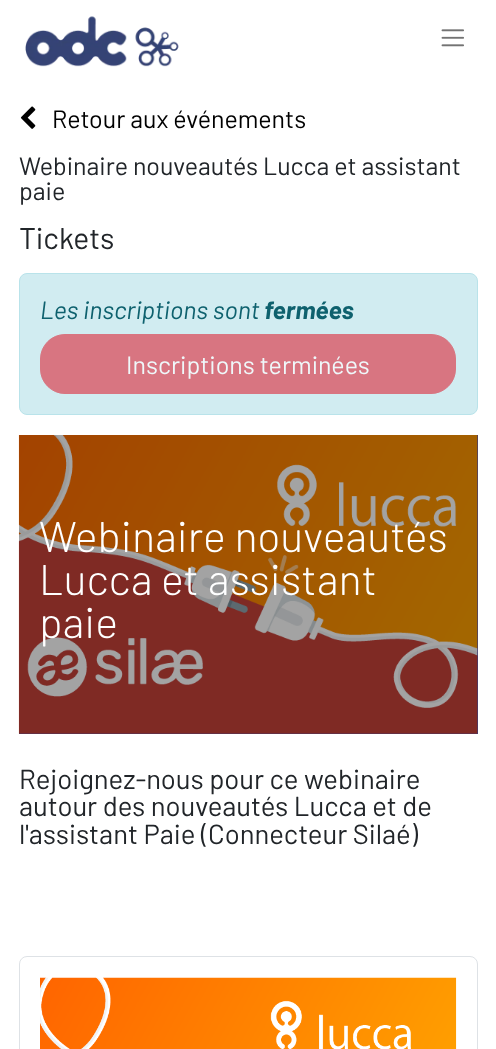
<!DOCTYPE html>
<meta charset="utf-8">
<style>body { margin: 0 } canvas { display: block }</style>
<canvas id="canvas" width="496" height="1049"></canvas>
<script type="module">
  const canvas = document.getElementById("canvas");
  const g = canvas.getContext("2d");
  g.miterLimit = 4;
  g.fontKerning = "normal";
  function drawText(s, x, y, [font, color]) {
    g.font = font;
    g.fillStyle = color;
    g.fillText(s, x, y);
  }
  function fillBox(x, y, w, h, color) {
    g.fillStyle = color;
    g.fillRect(x, y, w, h);
  }
  async function drawPicture(src, x, y, w, h) {
    const img = new Image();
    img.src = src;
    await img.decode();
    g.drawImage(img, x, y, w, h);
  }

  const s1 = ["25px Barlow", "#000000"];
  const s2 = ["25px Barlow", "#212529"];
  const s3 = ["30px Barlow", "#212529"];
  const s4 = ["italic 25px Barlow", "#0E616E"];
  const s5 = ["italic bold 25px Barlow", "#0E616E"];
  const s6 = ["25px Barlow", "#EFF8FA"];
  const s7 = ["300 43px Barlow", "#FFFFFF"];
  const s8 = ["27.5px Barlow", "#212529"];

  fillBox(0, 0, 496, 1049, "#FFFFFF");
  await drawPicture("pic1.png", 25, 16, 154, 51);
  await drawPicture("pic2.png", 441, 29, 23, 18);
  await drawPicture("pic3.png", 20, 106, 16, 23);
  drawText("Retour aux événements", 52, 128, s1);
  drawText("Webinaire nouveautés Lucca et assistant", 19, 175, s2);
  drawText("paie", 19, 200, s2);
  drawText("Tickets", 19, 249, s3);
  g.fillStyle = "#D1ECF1";
  g.beginPath();
  g.roundRect(19.5, 273.5, 458, 141, 7.5);
  g.fill();
  g.strokeStyle = "#B9E3EA";
  g.stroke();
  drawText("Les inscriptions sont", 40, 319, s4);
  drawText("fermées", 264, 319, s5);
  g.fillStyle = "#D87581";
  g.beginPath();
  g.roundRect(40.5, 334.5, 415, 59, 24.5);
  g.fill();
  g.strokeStyle = "#D87581";
  g.stroke();
  drawText("Inscriptions terminées", 126, 374, s6);
  fillBox(19, 435, 459, 299, "#403B6F");
  await drawPicture("pic4.png", 18, 435, 460, 299);
  drawText("Webinaire nouveautés", 39, 552, s7);
  drawText("Lucca et assistant", 39, 595, s7);
  drawText("paie", 39, 638, s7);
  drawText("Rejoignez-nous pour ce webinaire", 19, 789, s8);
  drawText("autour des nouveautés Lucca et de", 19, 816, s8);
  drawText("l'assistant Paie (Connecteur Silaé)", 19, 844, s8);
  g.beginPath();
  g.roundRect(19.5, 956.5, 458, 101, 7.5);
  g.strokeStyle = "#DEE2E6";
  g.stroke();
  await drawPicture("pic5.png", 40, 977, 417, 72);
</script>
